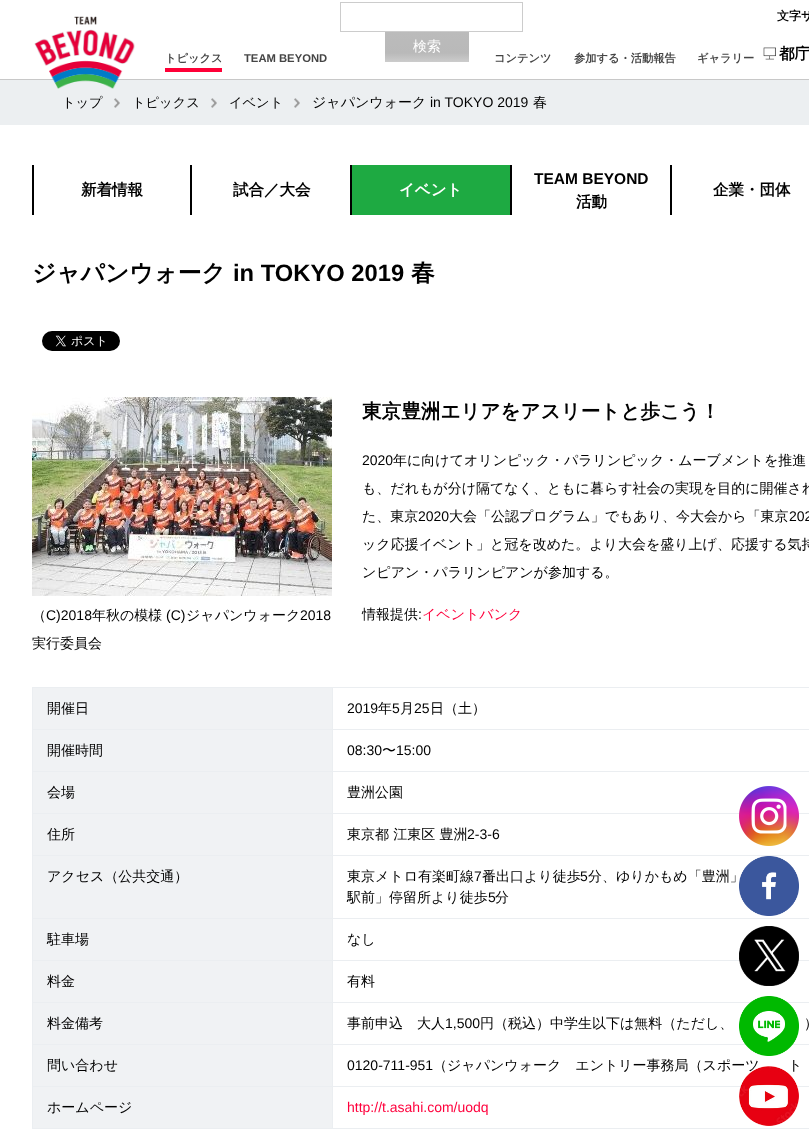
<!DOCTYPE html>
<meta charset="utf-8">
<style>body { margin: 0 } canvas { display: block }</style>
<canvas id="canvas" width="809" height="1146"></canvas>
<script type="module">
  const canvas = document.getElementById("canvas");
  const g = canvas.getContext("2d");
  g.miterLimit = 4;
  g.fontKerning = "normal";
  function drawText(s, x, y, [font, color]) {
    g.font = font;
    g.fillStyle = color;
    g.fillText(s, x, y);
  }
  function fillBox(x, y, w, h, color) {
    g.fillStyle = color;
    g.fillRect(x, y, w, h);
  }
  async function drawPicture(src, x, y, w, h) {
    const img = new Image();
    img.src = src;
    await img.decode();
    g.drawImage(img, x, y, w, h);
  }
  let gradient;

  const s1 = ["bold 12px WenQuanYi Zen Hei", "#000000"];
  const s2 = ["bold 11.25px WenQuanYi Zen Hei", "#454545"];
  const s3 = ["bold 11.25px Liberation Sans", "#454545"];
  const s4 = ["bold 15.5px WenQuanYi Zen Hei", "#000000"];
  const s5 = ["500 14px WenQuanYi Zen Hei", "#FFFFFF"];
  const s6 = ["500 13.25px WenQuanYi Zen Hei", "#000000"];
  const s7 = ["500 14px WenQuanYi Zen Hei", "#000000"];
  const s8 = ["14px Liberation Sans", "#000000"];
  const s9 = ["bold 15.5px WenQuanYi Zen Hei", "#FFFFFF"];
  const s10 = ["bold 15.5px Liberation Sans", "#000000"];
  const s11 = ["bold 23.75px WenQuanYi Zen Hei", "#000000"];
  const s12 = ["bold 23.75px Liberation Sans", "#000000"];
  const s13 = ["bold 19.6px WenQuanYi Zen Hei", "#000000"];
  const s14 = ["500 14px WenQuanYi Zen Hei", "#FF003C"];
  const s15 = ["14px Liberation Sans", "#FF003C"];

  fillBox(0, 0, 809, 1146, "#FFFFFF");
  fillBox(0, 79, 809, 1, "#C8C8C8");
  fillBox(0, 80, 809, 45, "#ECEFF1");
  await drawPicture("pic1.png", 34, 16, 101, 73);
  drawText("文字サ", 777, 20, s1);
  drawText("トピックス", 165, 62, s2);
  fillBox(165, 68, 57, 4, "#FF0037");
  drawText("TEAM BEYOND", 244, 62, s3);
  drawText("コンテンツ", 494, 62, s2);
  drawText("参加する・活動報告", 574, 62, s2);
  drawText("ギャラリー", 697, 62, s2);
  await drawPicture("pic2.png", 763, 47, 13, 13);
  drawText("都庁", 779, 59, s4);
  g.strokeStyle = "#CCCCCC";
  g.strokeRect(340.5, 2.5, 182, 29);
  gradient = g.createLinearGradient(427, 32, 427, 62);
  gradient.addColorStop(0, "#BBBBBB");
  gradient.addColorStop(0.7, "#B9B9B9");
  gradient.addColorStop(1, "#CCCCCC");
  g.fillStyle = gradient;
  g.fillRect(385, 32, 84, 30);
  drawText("検索", 413, 51, s5);
  await drawPicture("pic3.png", 114, 98, 6, 10);
  drawText("トップ", 62, 107, s6);
  await drawPicture("pic4.png", 211, 98, 6, 10);
  drawText("トピックス", 132, 107, s6);
  await drawPicture("pic4.png", 294, 98, 6, 10);
  drawText("イベント", 229, 107, s6);
  drawText("ジャパンウォーク", 312, 107, s7);
  drawText("in TOKYO 2019", 430, 107, s8);
  drawText("春", 533, 107, s7);
  fillBox(190, 165, 2, 50, "#000000");
  fillBox(32, 165, 2, 50, "#000000");
  drawText("新着情報", 81, 195, s4);
  fillBox(350, 165, 2, 50, "#000000");
  drawText("試合／大会", 233, 195, s4);
  fillBox(352, 165, 158, 50, "#1EAA42");
  fillBox(510, 165, 2, 50, "#000000");
  drawText("イベント", 399, 195, s9);
  fillBox(670, 165, 2, 50, "#000000");
  drawText("TEAM BEYOND", 534, 184, s10);
  drawText("活動", 576, 207, s4);
  drawText("企業・団体", 713, 195, s4);
  drawText("ジャパンウォーク", 32, 281, s11);
  drawText("in TOKYO 2019", 233, 281, s12);
  drawText("春", 411, 281, s11);
  await drawPicture("pic5.png", 42, 331, 78, 20);
  drawText("東京豊洲エリアをアスリートと歩こう！", 362, 418, s13);
  drawText("2020", 362, 465, s8);
  drawText("年に向けてオリンピック・パラリンピック・ムーブメントを推進", 393, 465, s7);
  drawText("も、だれもが分け隔てなく、ともに暮らす社会の実現を目的に開催され", 362, 493, s7);
  drawText("た、東京", 362, 521, s7);
  drawText("2020", 418, 521, s8);
  drawText("大会「公認プログラム」でもあり、今大会から「東京", 449, 521, s7);
  drawText("202", 789, 521, s8);
  drawText("ック応援イベント」と冠を改めた。より大会を盛り上げ、応援する気持", 362, 549, s7);
  drawText("ンピアン・パラリンピアンが参加する。", 362, 577, s7);
  await drawPicture("pic6.png", 32, 397, 300, 199);
  drawText("（", 32, 620, s7);
  drawText("C)2018", 46, 620, s8);
  drawText("年秋の模様", 92, 620, s7);
  drawText("(C)", 166, 620, s8);
  drawText("ジャパンウォーク", 186, 620, s7);
  drawText("2018", 300, 620, s8);
  drawText("実行委員会", 32, 648, s7);
  drawText("情報提供", 362, 619, s7);
  drawText(":", 418, 619, s8);
  drawText("イベントバンク", 422, 619, s14);
  fillBox(32, 687, 777, 1, "#EBEEF1");
  fillBox(32, 1128, 777, 1, "#EBEEF1");
  fillBox(32, 687, 1, 442, "#EBEEF1");
  fillBox(33, 688, 299, 41, "#F0F2F4");
  drawText("開催日", 47, 713, s7);
  fillBox(332, 729, 477, 1, "#EBEEF1");
  fillBox(332, 771, 477, 1, "#EBEEF1");
  fillBox(332, 813, 477, 1, "#EBEEF1");
  fillBox(332, 855, 477, 1, "#EBEEF1");
  fillBox(332, 918, 477, 1, "#EBEEF1");
  fillBox(332, 960, 477, 1, "#EBEEF1");
  fillBox(332, 1002, 477, 1, "#EBEEF1");
  fillBox(332, 1044, 477, 1, "#EBEEF1");
  fillBox(332, 1086, 477, 1, "#EBEEF1");
  fillBox(332, 1086, 1, 43, "#EBEEF1");
  fillBox(32, 1086, 301, 1, "#EBEEF1");
  fillBox(332, 1044, 1, 43, "#EBEEF1");
  fillBox(32, 1044, 301, 1, "#EBEEF1");
  fillBox(332, 1002, 1, 43, "#EBEEF1");
  fillBox(32, 1002, 301, 1, "#EBEEF1");
  fillBox(332, 960, 1, 43, "#EBEEF1");
  fillBox(32, 960, 301, 1, "#EBEEF1");
  fillBox(332, 918, 1, 43, "#EBEEF1");
  fillBox(32, 918, 301, 1, "#EBEEF1");
  fillBox(332, 855, 1, 64, "#EBEEF1");
  fillBox(32, 855, 301, 1, "#EBEEF1");
  fillBox(332, 813, 1, 43, "#EBEEF1");
  fillBox(32, 813, 301, 1, "#EBEEF1");
  fillBox(332, 771, 1, 43, "#EBEEF1");
  fillBox(32, 771, 301, 1, "#EBEEF1");
  fillBox(332, 729, 1, 43, "#EBEEF1");
  fillBox(32, 729, 301, 1, "#EBEEF1");
  fillBox(332, 687, 1, 43, "#EBEEF1");
  drawText("2019", 347, 713, s8);
  drawText("年", 378, 713, s7);
  drawText("5", 392, 713, s8);
  drawText("月", 400, 713, s7);
  drawText("25", 414, 713, s8);
  drawText("日（土）", 430, 713, s7);
  fillBox(33, 730, 299, 41, "#F0F2F4");
  drawText("開催時間", 47, 755, s7);
  drawText("08:30", 347, 755, s8);
  drawText("〜", 382, 755, s7);
  drawText("15:00", 396, 755, s8);
  fillBox(33, 772, 299, 41, "#F0F2F4");
  drawText("会場", 47, 797, s7);
  drawText("豊洲公園", 347, 797, s7);
  fillBox(33, 814, 299, 41, "#F0F2F4");
  drawText("住所", 47, 839, s7);
  drawText("東京都 江東区 豊洲", 347, 839, s7);
  drawText("2-3-6", 467, 839, s8);
  fillBox(33, 856, 299, 62, "#F0F2F4");
  drawText("アクセス（公共交通）", 47, 881, s7);
  drawText("東京メトロ有楽町線", 347, 881, s7);
  drawText("7", 474, 881, s8);
  drawText("番出口より徒歩", 482, 881, s7);
  drawText("5", 580, 881, s8);
  drawText("分、ゆりかもめ「豊洲」", 588, 881, s7);
  drawText("駅前」停留所より徒歩", 347, 902, s7);
  drawText("5", 488, 902, s8);
  drawText("分", 495, 902, s7);
  fillBox(33, 919, 299, 41, "#F0F2F4");
  drawText("駐車場", 47, 944, s7);
  drawText("なし", 347, 944, s7);
  fillBox(33, 961, 299, 41, "#F0F2F4");
  drawText("料金", 47, 986, s7);
  drawText("有料", 347, 986, s7);
  fillBox(33, 1003, 299, 41, "#F0F2F4");
  drawText("料金備考", 47, 1028, s7);
  drawText("事前申込　大人", 347, 1028, s7);
  drawText("1,500", 445, 1028, s8);
  drawText("円（税込）中学生以下は無料（ただし、", 480, 1028, s7);
  drawText("）", 804, 1028, s7);
  fillBox(33, 1045, 299, 41, "#F0F2F4");
  drawText("問い合わせ", 47, 1070, s7);
  drawText("0120-711-951", 347, 1070, s8);
  drawText("（ジャパンウォーク　エントリー事務局（スポーツ", 433, 1070, s7);
  drawText("ト", 788, 1070, s7);
  fillBox(33, 1087, 299, 41, "#F0F2F4");
  drawText("ホームページ", 47, 1112, s7);
  drawText("http://t.asahi.com/uodq", 347, 1112, s15);
  await drawPicture("pic7.png", 739, 786, 60, 60);
  await drawPicture("pic8.png", 739, 856, 60, 60);
  await drawPicture("pic9.png", 739, 926, 60, 60);
  await drawPicture("pic10.png", 739, 996, 60, 60);
  await drawPicture("pic11.png", 739, 1066, 60, 60);
</script>
